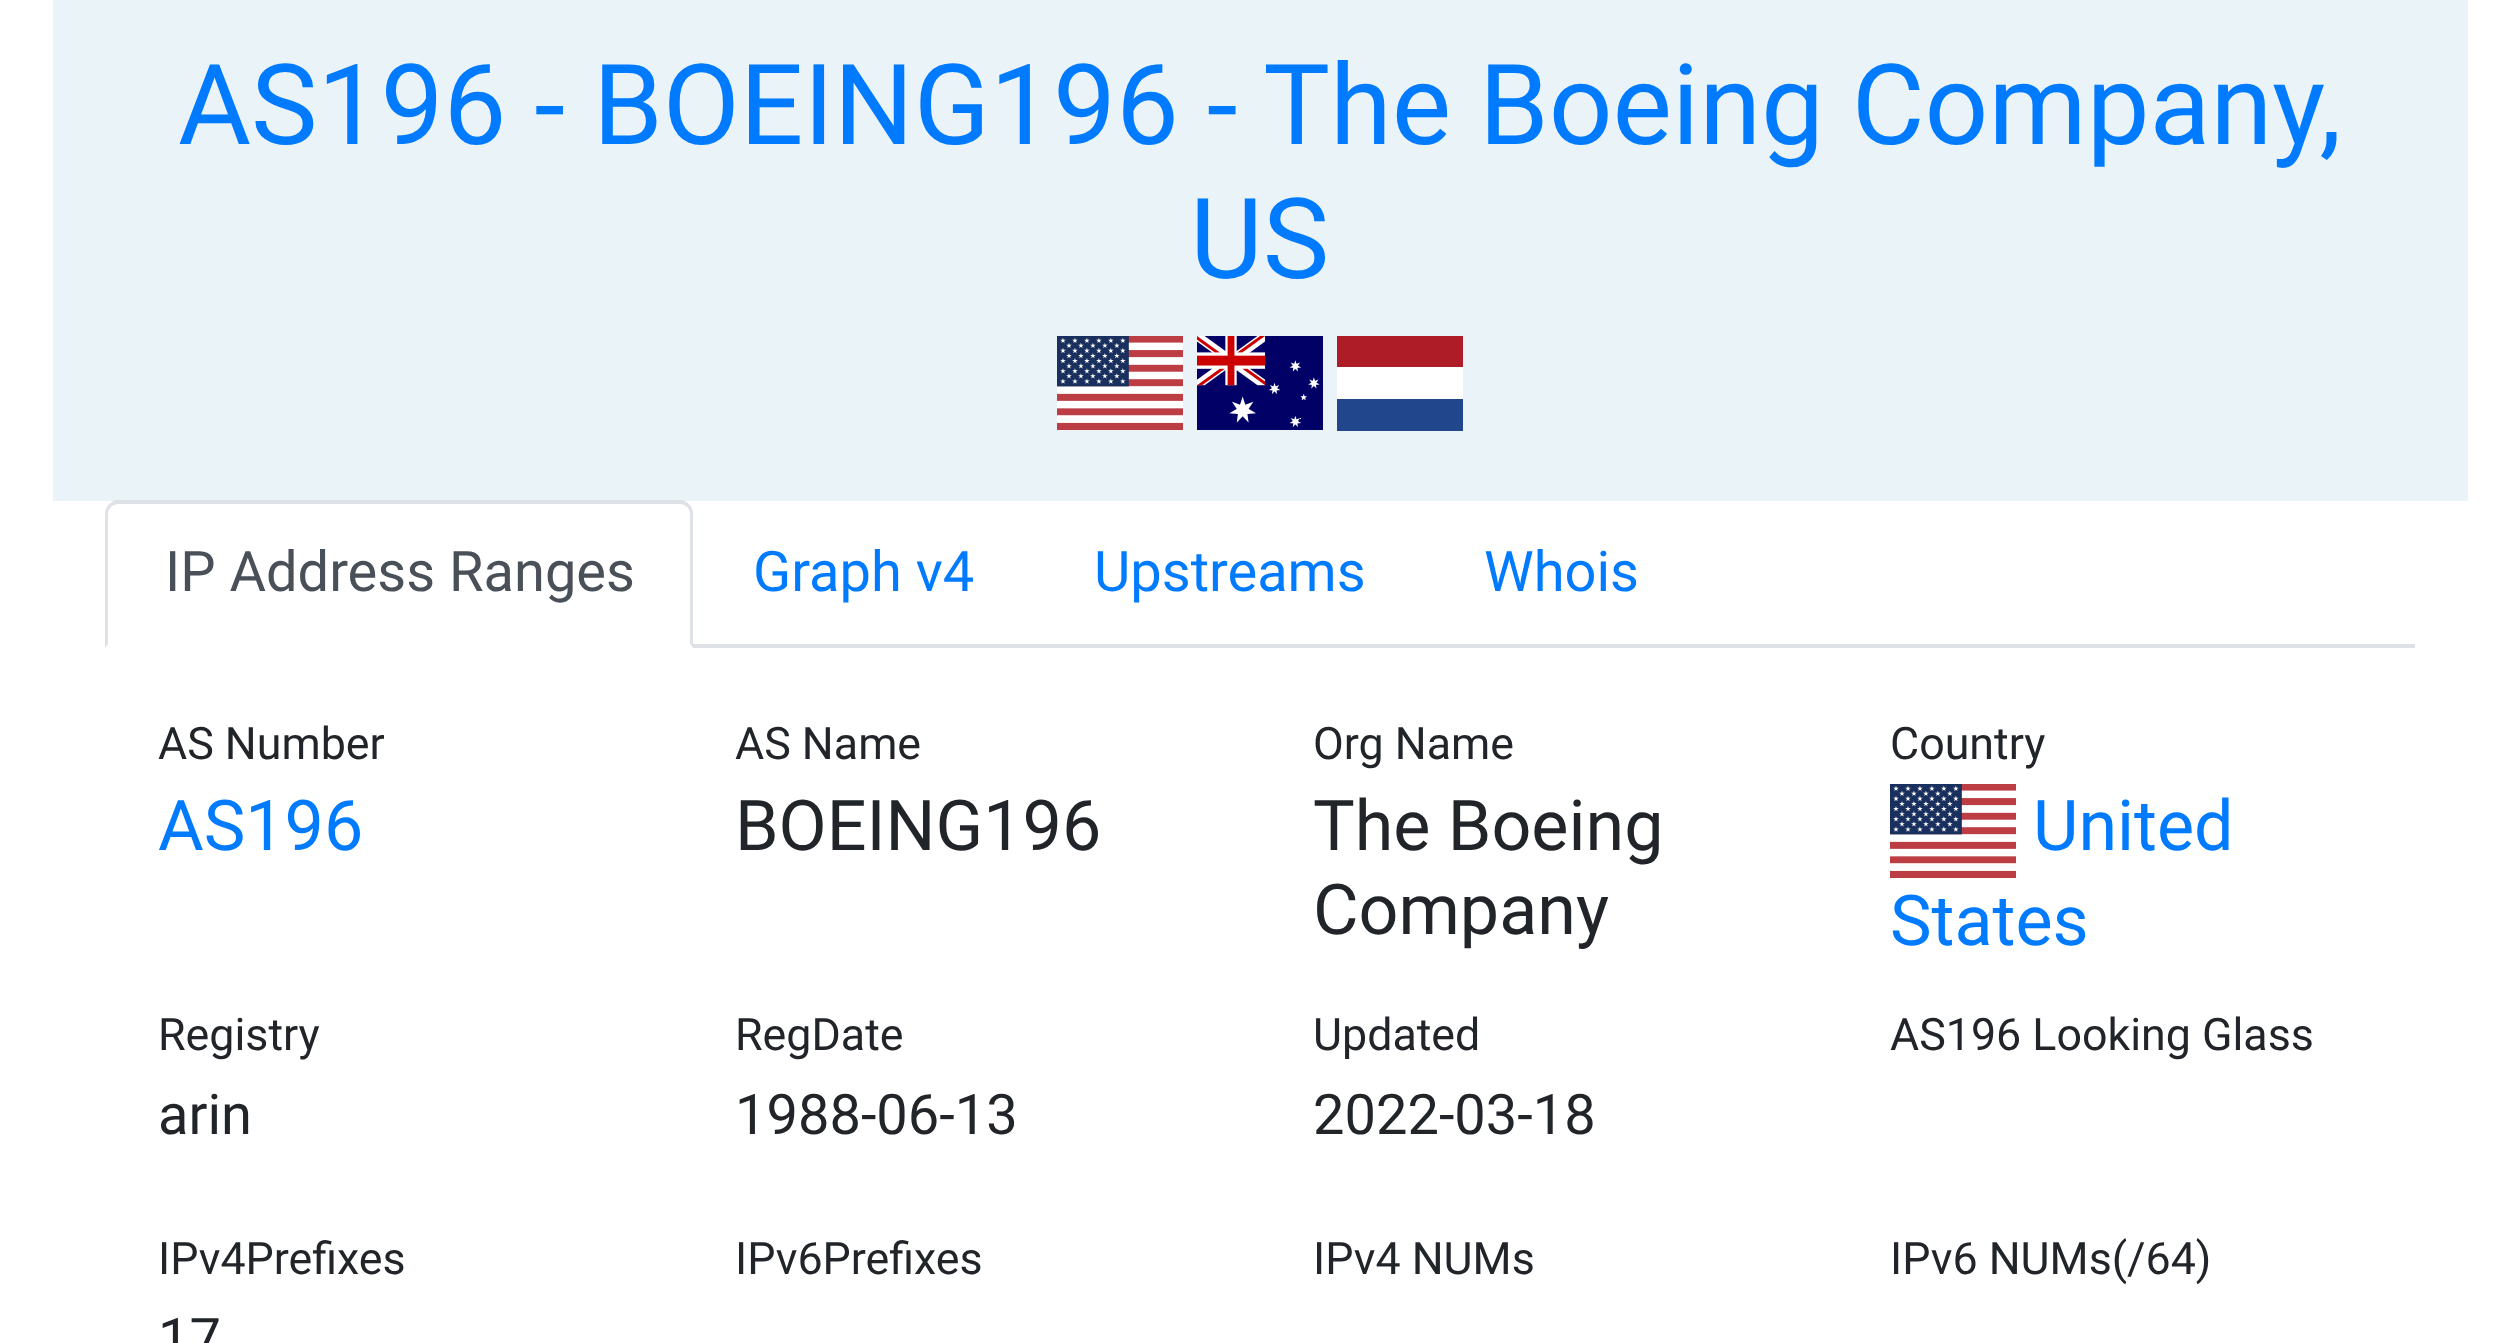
<!DOCTYPE html>
<meta charset="utf-8">
<style>body { margin: 0 } canvas { display: block }</style>
<canvas id="canvas" width="2520" height="1343"></canvas>
<script type="module">
  const canvas = document.getElementById("canvas");
  const g = canvas.getContext("2d");
  g.miterLimit = 4;
  g.fontKerning = "normal";
  function drawText(s, x, y, [font, color]) {
    g.font = font;
    g.fillStyle = color;
    g.fillText(s, x, y);
  }
  function fillBox(x, y, w, h, color) {
    g.fillStyle = color;
    g.fillRect(x, y, w, h);
  }
  async function drawPicture(src, x, y, w, h) {
    const img = new Image();
    img.src = src;
    await img.decode();
    g.drawImage(img, x, y, w, h);
  }

  const s1 = ["112px Roboto", "#007BFF"];
  const s2 = ["56px Roboto", "#495057"];
  const s3 = ["56px Roboto", "#007BFF"];
  const s4 = ["44.75px Roboto", "#212529"];
  const s5 = ["70px Roboto", "#007BFF"];
  const s6 = ["70px Roboto", "#212529"];
  const s7 = ["56px Roboto", "#212529"];

  fillBox(0, 0, 2520, 1343, "#FFFFFF");
  fillBox(53, 0, 2415, 501, "#EAF3F8");
  drawText("AS196 - BOEING196 - The Boeing Company,", 178, 144, s1);
  drawText("US", 1190, 278, s1);
  await drawPicture("pic1.png", 1057, 336, 126, 94);
  await drawPicture("pic2.png", 1197, 336, 126, 94);
  fillBox(1337, 336, 126, 31, "#AE1C28");
  fillBox(1337, 367, 126, 32, "#FFFFFF");
  fillBox(1337, 399, 126, 32, "#21468B");
  fillBox(693, 644, 1722, 4, "#DEE2E6");
  g.beginPath();
  g.moveTo(119, 504);
  g.bezierCurveTo(116, 504, 113, 505, 111, 507);
  g.lineTo(109, 504);
  g.bezierCurveTo(111, 503, 113, 501, 115, 500);
  g.lineTo(683, 500);
  g.bezierCurveTo(685, 501, 687, 503, 689, 504);
  g.lineTo(687, 507);
  g.bezierCurveTo(685, 505, 682, 504, 679, 504);
  g.closePath();
  g.fill();
  g.beginPath();
  g.moveTo(693, 648);
  g.lineTo(693, 514);
  g.bezierCurveTo(693, 511, 692, 507, 689, 504);
  g.lineTo(687, 507);
  g.bezierCurveTo(689, 509, 690, 511, 690, 514);
  g.lineTo(690, 644);
  g.closePath();
  g.fill();
  g.fillStyle = "#FFFFFF";
  g.beginPath();
  g.moveTo(693, 648);
  g.lineTo(105, 648);
  g.lineTo(108, 644);
  g.lineTo(690, 644);
  g.closePath();
  g.fill();
  g.fillStyle = "#DEE2E6";
  g.beginPath();
  g.moveTo(105, 648);
  g.lineTo(108, 644);
  g.lineTo(108, 514);
  g.bezierCurveTo(108, 511, 109, 509, 111, 507);
  g.lineTo(109, 504);
  g.bezierCurveTo(106, 507, 105, 511, 105, 514);
  g.closePath();
  g.fill();
  drawText("IP Address Ranges", 165, 591, s2);
  drawText("Graph v4", 753, 591, s3);
  drawText("Upstreams", 1094, 591, s3);
  drawText("Whois", 1484, 591, s3);
  drawText("AS Number", 158, 759, s4);
  drawText("AS196", 158, 850, s5);
  drawText("AS Name", 735, 759, s4);
  drawText("BOEING196", 735, 850, s6);
  drawText("Org Name", 1313, 759, s4);
  drawText("The Boeing", 1313, 850, s6);
  drawText("Company", 1313, 934, s6);
  drawText("Country", 1890, 759, s4);
  await drawPicture("pic3.png", 1890, 784, 126, 94);
  drawText("United", 2033, 850, s5);
  drawText("States", 1890, 945, s5);
  drawText("Registry", 158, 1050, s4);
  drawText("arin", 158, 1134, s7);
  drawText("RegDate", 735, 1050, s4);
  drawText("1988-06-13", 735, 1134, s7);
  drawText("Updated", 1313, 1050, s4);
  drawText("2022-03-18", 1313, 1134, s7);
  drawText("AS196 Looking Glass", 1890, 1050, s4);
  drawText("IPv4Prefixes", 158, 1274, s4);
  drawText("17", 158, 1358, s7);
  drawText("IPv6Prefixes", 735, 1274, s4);
  drawText("IPv4 NUMs", 1313, 1274, s4);
  drawText("IPv6 NUMs(/64)", 1890, 1274, s4);
</script>
